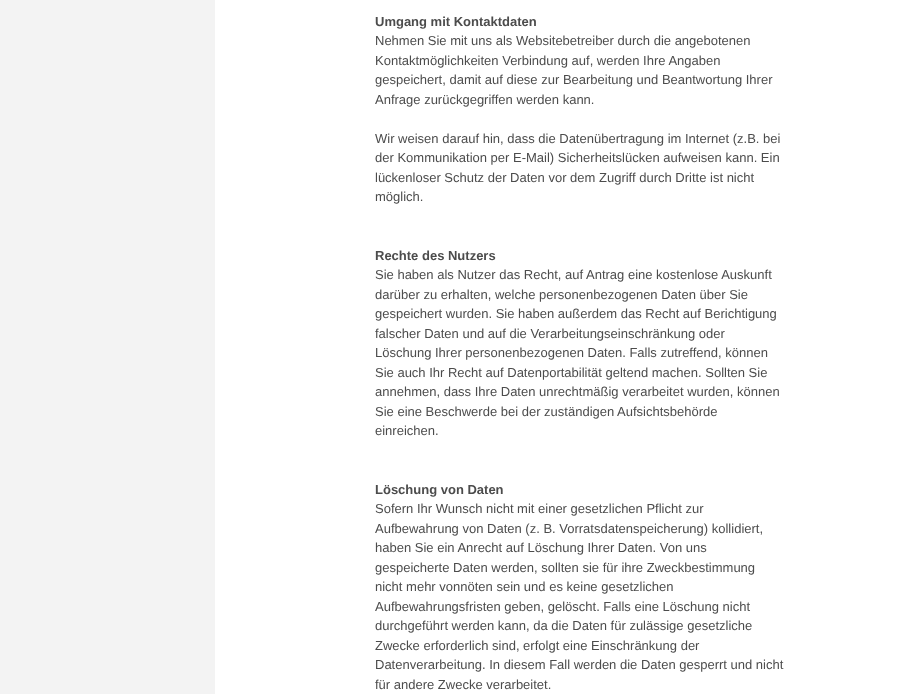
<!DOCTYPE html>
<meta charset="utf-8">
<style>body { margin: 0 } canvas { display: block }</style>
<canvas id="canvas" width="911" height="694"></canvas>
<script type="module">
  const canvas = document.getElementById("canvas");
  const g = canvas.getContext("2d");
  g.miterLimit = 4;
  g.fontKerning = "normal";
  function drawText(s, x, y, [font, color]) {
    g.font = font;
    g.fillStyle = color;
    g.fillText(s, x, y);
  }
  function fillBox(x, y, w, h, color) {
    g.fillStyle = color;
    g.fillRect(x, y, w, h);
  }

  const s1 = ["bold 13px Liberation Sans", "#4C4C4C"];
  const s2 = ["13px Liberation Sans", "#4C4C4C"];

  fillBox(0, 0, 911, 694, "#F3F3F3");
  fillBox(215, 0, 696, 694, "#FFFFFF");
  drawText("Umgang mit Kontaktdaten", 375, 26, s1);
  drawText("Nehmen Sie mit uns als Websitebetreiber durch die angebotenen", 375, 45, s2);
  drawText("Kontaktmöglichkeiten Verbindung auf, werden Ihre Angaben", 375, 65, s2);
  drawText("gespeichert, damit auf diese zur Bearbeitung und Beantwortung Ihrer", 375, 84, s2);
  drawText("Anfrage zurückgegriffen werden kann.", 375, 104, s2);
  drawText("Wir weisen darauf hin, dass die Datenübertragung im Internet (z.B. bei", 375, 143, s2);
  drawText("der Kommunikation per E-Mail) Sicherheitslücken aufweisen kann. Ein", 375, 162, s2);
  drawText("lückenloser Schutz der Daten vor dem Zugriff durch Dritte ist nicht", 375, 182, s2);
  drawText("möglich.", 375, 201, s2);
  drawText("Rechte des Nutzers", 375, 260, s1);
  drawText("Sie haben als Nutzer das Recht, auf Antrag eine kostenlose Auskunft", 375, 279, s2);
  drawText("darüber zu erhalten, welche personenbezogenen Daten über Sie", 375, 299, s2);
  drawText("gespeichert wurden. Sie haben außerdem das Recht auf Berichtigung", 375, 318, s2);
  drawText("falscher Daten und auf die Verarbeitungseinschränkung oder", 375, 338, s2);
  drawText("Löschung Ihrer personenbezogenen Daten. Falls zutreffend, können", 375, 357, s2);
  drawText("Sie auch Ihr Recht auf Datenportabilität geltend machen. Sollten Sie", 375, 377, s2);
  drawText("annehmen, dass Ihre Daten unrechtmäßig verarbeitet wurden, können", 375, 396, s2);
  drawText("Sie eine Beschwerde bei der zuständigen Aufsichtsbehörde", 375, 416, s2);
  drawText("einreichen.", 375, 435, s2);
  drawText("Löschung von Daten", 375, 494, s1);
  drawText("Sofern Ihr Wunsch nicht mit einer gesetzlichen Pflicht zur", 375, 513, s2);
  drawText("Aufbewahrung von Daten (z. B. Vorratsdatenspeicherung) kollidiert,", 375, 533, s2);
  drawText("haben Sie ein Anrecht auf Löschung Ihrer Daten. Von uns", 375, 552, s2);
  drawText("gespeicherte Daten werden, sollten sie für ihre Zweckbestimmung", 375, 572, s2);
  drawText("nicht mehr vonnöten sein und es keine gesetzlichen", 375, 591, s2);
  drawText("Aufbewahrungsfristen geben, gelöscht. Falls eine Löschung nicht", 375, 611, s2);
  drawText("durchgeführt werden kann, da die Daten für zulässige gesetzliche", 375, 630, s2);
  drawText("Zwecke erforderlich sind, erfolgt eine Einschränkung der", 375, 650, s2);
  drawText("Datenverarbeitung. In diesem Fall werden die Daten gesperrt und nicht", 375, 669, s2);
  drawText("für andere Zwecke verarbeitet.", 375, 689, s2);
</script>
